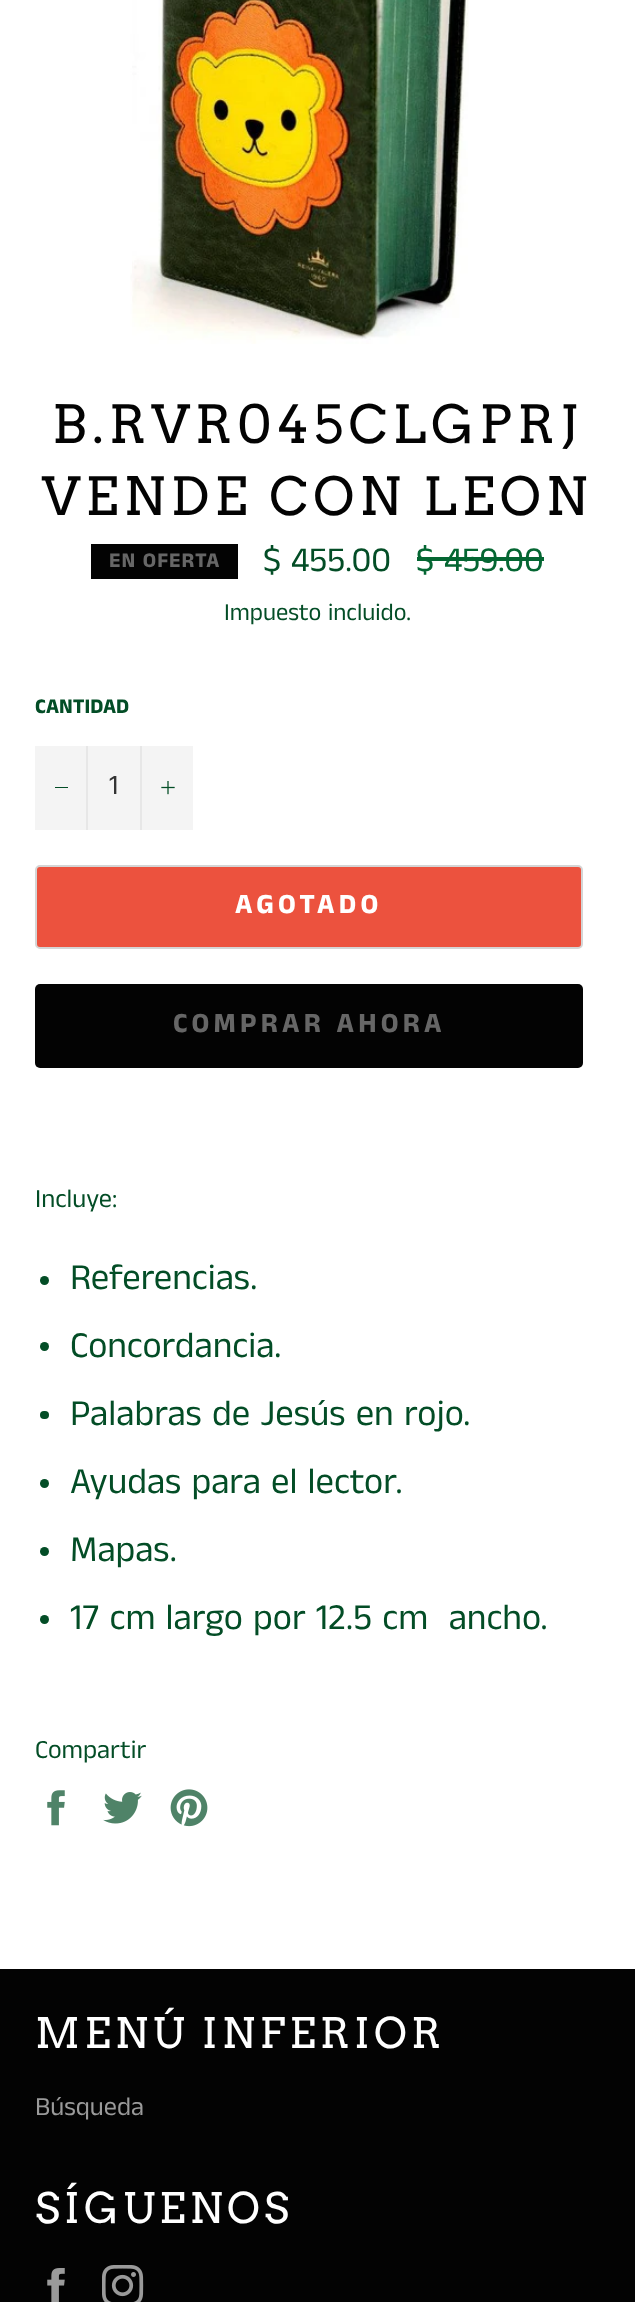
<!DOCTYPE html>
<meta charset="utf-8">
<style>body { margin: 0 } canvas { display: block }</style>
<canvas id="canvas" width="635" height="2302"></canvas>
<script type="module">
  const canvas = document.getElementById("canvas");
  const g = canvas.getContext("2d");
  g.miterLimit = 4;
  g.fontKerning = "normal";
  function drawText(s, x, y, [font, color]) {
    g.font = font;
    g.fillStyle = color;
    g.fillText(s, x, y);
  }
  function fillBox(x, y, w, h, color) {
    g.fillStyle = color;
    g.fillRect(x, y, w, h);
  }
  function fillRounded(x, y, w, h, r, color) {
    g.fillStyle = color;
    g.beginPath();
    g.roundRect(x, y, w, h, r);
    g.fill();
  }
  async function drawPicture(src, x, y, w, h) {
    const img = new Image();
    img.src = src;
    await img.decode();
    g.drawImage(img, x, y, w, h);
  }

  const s1 = ["52.5px Arvo", "#030303"];
  const s2 = ["bold 21px Anek Tamil", "#666666"];
  const s3 = ["35px Anek Tamil", "#034D26"];
  const s4 = ["35px Anek Tamil", "#046632"];
  const s5 = ["24.5px Anek Tamil", "#034D26"];
  const s6 = ["bold 21px Anek Tamil", "#034D26"];
  const s7 = ["28px Anek Tamil", "#333333"];
  const s8 = ["bold 28px Anek Tamil", "#FFFFFF"];
  const s9 = ["bold 28px Anek Tamil", "#666666"];
  const s10 = ["26.25px Anek Tamil", "#034D26"];
  const s11 = ["36.75px Anek Tamil", "#034D26"];
  const s12 = ["42px Arvo", "#FFFFFF"];
  const s13 = ["26.25px Anek Tamil", "#9A9A9A"];

  fillBox(0, 0, 635, 2302, "#FFFFFF");
  await drawPicture("pic1.png", 130, 0, 339, 344);
  g.letterSpacing = "5.25px";
  drawText("B.RVR045CLGPRJ", 52, 443, s1);
  drawText("VENDE CON LEON", 42, 515, s1);
  fillBox(91, 544, 147, 35, "#030303");
  g.letterSpacing = "1px";
  drawText("EN OFERTA", 109, 567, s2);
  g.letterSpacing = "0px";
  drawText("$ 455.00", 263, 571, s3);
  drawText("$ 459.00", 416, 571, s4);
  fillBox(417, 557, 127, 4, "#046632");
  drawText("Impuesto incluido.", 224, 620, s5);
  drawText("CANTIDAD", 35, 713, s6);
  fillBox(35, 746, 158, 84, "#F4F4F4");
  fillBox(86, 746, 2, 84, "#E7E7E7");
  fillBox(55, 787, 13, 1, "#034D26");
  drawText("1", 109, 794, s7);
  fillBox(140, 746, 2, 84, "#E7E7E7");
  await drawPicture("pic2.png", 161, 781, 14, 14);
  g.fillStyle = "#EC523E";
  g.beginPath();
  g.roundRect(36, 866, 546, 82, 4);
  g.fill();
  g.strokeStyle = "#D5D5D5";
  g.lineWidth = 2;
  g.stroke();
  g.letterSpacing = "4.25px";
  drawText("AGOTADO", 235, 913, s8);
  fillRounded(35, 984, 548, 84, 5, "#030303");
  drawText("COMPRAR AHORA", 173, 1032, s9);
  g.letterSpacing = "0px";
  drawText("Incluye:", 35, 1207, s10);
  g.beginPath();
  g.arc(44.5, 1280.5, 4.5, 0, Math.PI * 2);
  g.fill();
  drawText("Referencias.", 70, 1289, s11);
  g.beginPath();
  g.arc(44.5, 1346.5, 4.5, 0, Math.PI * 2);
  g.fill();
  drawText("Concordancia.", 70, 1357, s11);
  fillRounded(40, 1411, 9, 8, 4, "#034D26");
  drawText("Palabras de Jesús en rojo.", 70, 1425, s11);
  g.beginPath();
  g.arc(44.5, 1483.5, 4.5, 0, Math.PI * 2);
  g.fill();
  drawText("Ayudas para el lector.", 70, 1493, s11);
  g.beginPath();
  g.arc(44.5, 1551.5, 4.5, 0, Math.PI * 2);
  g.fill();
  drawText("Mapas.", 70, 1561, s11);
  g.beginPath();
  g.arc(44.5, 1619.5, 4.5, 0, Math.PI * 2);
  g.fill();
  drawText("17 cm largo por 12.5 cm  ancho.", 70, 1629, s11);
  drawText("Compartir", 35, 1758, s10);
  await drawPicture("pic3.png", 47, 1790, 18, 36);
  await drawPicture("pic4.png", 103, 1792, 39, 32);
  await drawPicture("pic5.png", 170, 1789, 38, 38);
  fillBox(0, 1969, 635, 333, "#030303");
  g.letterSpacing = "4.25px";
  drawText("MENÚ INFERIOR", 35, 2048, s12);
  g.letterSpacing = "0px";
  drawText("Búsqueda", 35, 2115, s13);
  g.letterSpacing = "4.25px";
  drawText("SÍGUENOS", 35, 2223, s12);
  await drawPicture("pic6.png", 47, 2268, 18, 34);
  await drawPicture("pic7.png", 102, 2265, 42, 37);
</script>
